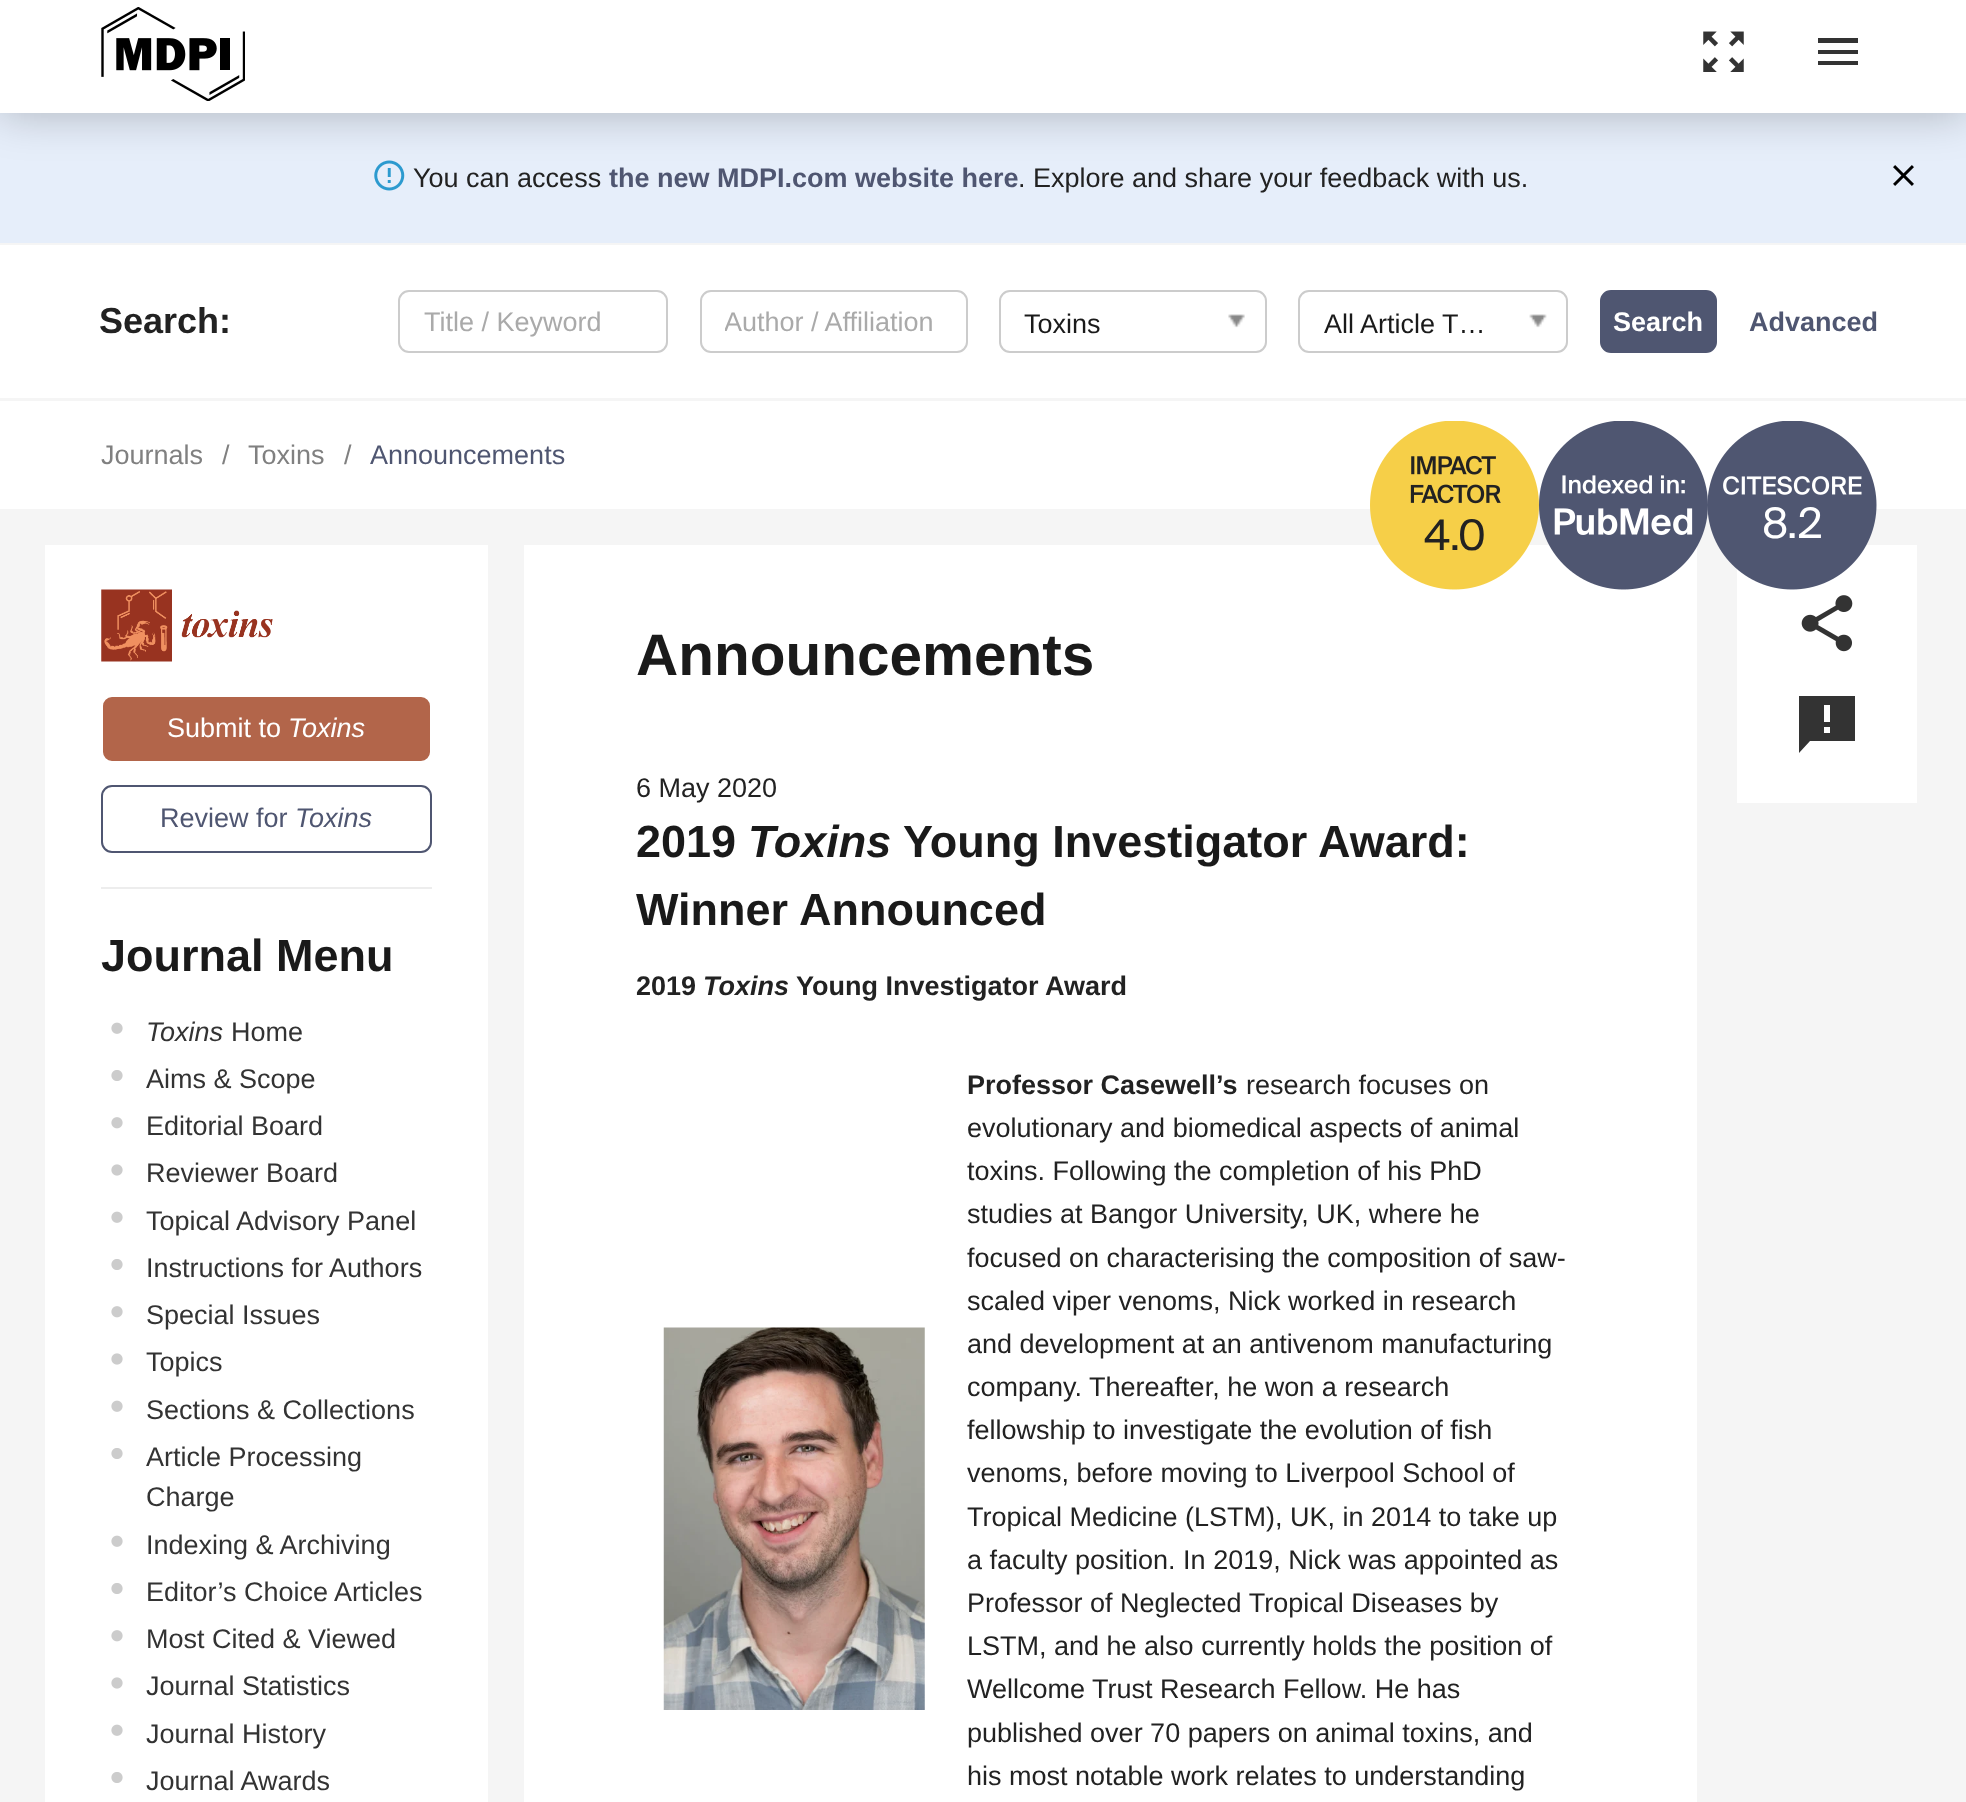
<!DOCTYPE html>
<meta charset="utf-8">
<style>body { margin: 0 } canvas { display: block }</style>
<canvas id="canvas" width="1966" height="1802"></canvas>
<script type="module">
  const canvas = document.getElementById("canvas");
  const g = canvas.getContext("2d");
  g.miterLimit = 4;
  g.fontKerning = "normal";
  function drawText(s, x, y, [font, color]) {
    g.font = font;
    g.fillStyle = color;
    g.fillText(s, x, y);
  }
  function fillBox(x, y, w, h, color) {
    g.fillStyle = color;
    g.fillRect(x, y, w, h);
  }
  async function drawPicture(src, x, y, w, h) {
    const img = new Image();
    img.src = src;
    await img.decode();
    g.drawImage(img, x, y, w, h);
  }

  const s1 = ["27px Liberation Sans", "#222222"];
  const s2 = ["bold 27px Liberation Sans", "#4F5671"];
  const s3 = ["bold 36px Liberation Sans", "#222222"];
  const s4 = ["27px Liberation Sans", "#AAAAAA"];
  const s5 = ["27px Liberation Sans", "#1A1A1A"];
  const s6 = ["bold 27px Liberation Sans", "#FFFFFF"];
  const s7 = ["27px Liberation Sans", "#808080"];
  const s8 = ["27px Liberation Sans", "#4F5671"];
  const s9 = ["42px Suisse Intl", "#222222"];
  const s10 = ["42px Suisse Intl", "#FFFFFF"];
  const s11 = ["27px Liberation Sans", "#FFFFFF"];
  const s12 = ["italic 27px Liberation Sans", "#FFFFFF"];
  const s13 = ["italic 27px Liberation Sans", "#4F5671"];
  const s14 = ["bold 45px Liberation Sans", "#1A1A1A"];
  const s15 = ["italic 27px Liberation Sans", "#333333"];
  const s16 = ["27px Liberation Sans", "#333333"];
  const s17 = ["bold 58.5px Liberation Sans", "#1A1A1A"];
  const s18 = ["italic bold 45px Liberation Sans", "#1A1A1A"];
  const s19 = ["bold 27px Liberation Sans", "#222222"];
  const s20 = ["italic bold 27px Liberation Sans", "#222222"];

  fillBox(0, 0, 1966, 1802, "#F5F5F5");
  fillBox(0, 113, 1966, 130, "#E6EEFA");
  await drawPicture("pic3.png", 374, 160, 31, 31);
  await drawPicture("pic4.png", 1893, 165, 21, 21);
  g.fillStyle = "rgba(0, 0, 0, 0.25)";
  g.filter = "blur(22.5px)";
  g.beginPath();
  g.rect(0, 0, 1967, 113);
  g.fill();
  g.filter = "none";
  fillBox(0, 0, 1966, 113, "#FFFFFF");
  await drawPicture("pic1.png", 101, 7, 144, 94);
  await drawPicture("pic2.png", 1703, 31, 41, 41);
  g.fillStyle = "#333333";
  g.beginPath();
  g.moveTo(1818, 65);
  g.lineTo(1858, 65);
  g.lineTo(1858, 61);
  g.lineTo(1818, 61);
  g.closePath();
  g.moveTo(1818, 54);
  g.lineTo(1858, 54);
  g.lineTo(1858, 50);
  g.lineTo(1818, 50);
  g.closePath();
  g.moveTo(1818, 38);
  g.lineTo(1818, 43);
  g.lineTo(1858, 43);
  g.lineTo(1858, 38);
  g.closePath();
  g.fill();
  drawText("You can access", 413, 187, s1);
  drawText("the new MDPI.com website here", 609, 187, s2);
  drawText(". Explore and share your feedback with us.", 1018, 187, s1);
  fillBox(0, 245, 1966, 153, "#FFFFFF");
  drawText("Search:", 99, 333, s3);
  g.beginPath();
  g.roundRect(399, 291, 268, 61, 10);
  g.strokeStyle = "#CCCCCC";
  g.lineWidth = 2;
  g.stroke();
  drawText("Title / Keyword", 424, 331, s4);
  g.beginPath();
  g.roundRect(701, 291, 266, 61, 10);
  g.stroke();
  g.save();
  g.beginPath();
  g.rect(725, 306, 218, 32);
  g.clip();
  drawText("Author / Affiliation", 724, 331, s4);
  g.restore();
  g.beginPath();
  g.roundRect(1000, 291, 266, 61, 10);
  g.stroke();
  drawText("Toxins", 1024, 333, s5);
  await drawPicture("pic5.png", 1228, 314, 17, 14);
  g.beginPath();
  g.roundRect(1299, 291, 268, 61, 10);
  g.stroke();
  drawText("All Article T…", 1324, 333, s5);
  await drawPicture("pic6.png", 1529, 314, 18, 14);
  g.fillStyle = "#4F5671";
  g.beginPath();
  g.roundRect(1601, 291, 115, 61, 10);
  g.fill();
  g.strokeStyle = "#4F5671";
  g.stroke();
  drawText("Search", 1613, 331, s6);
  drawText("Advanced", 1749, 331, s2);
  fillBox(0, 401, 1966, 108, "#FFFFFF");
  drawText("Journals", 101, 464, s7);
  drawText("/", 222, 464, s7);
  drawText("Toxins", 248, 464, s7);
  drawText("/", 344, 464, s7);
  drawText("Announcements", 370, 464, s8);
  fillBox(524, 545, 1173, 1257, "#FFFFFF");
  await drawPicture("pic7.png", 1370, 421, 169, 169);
  drawText("4.0", 1424, 550, s9);
  await drawPicture("pic8.png", 1539, 421, 169, 169);
  fillBox(1737, 545, 180, 258, "#FFFFFF");
  await drawPicture("pic9.png", 1708, 421, 169, 169);
  drawText("8.2", 1762, 538, s10);
  fillBox(45, 545, 443, 1257, "#FFFFFF");
  await drawPicture("pic10.png", 101, 589, 172, 73);
  g.fillStyle = "#B2654A";
  g.beginPath();
  g.roundRect(102, 696, 329, 66, 10);
  g.fill();
  g.strokeStyle = "#FFFFFF";
  g.stroke();
  drawText("Submit to", 167, 737, s11);
  drawText("Toxins", 288, 737, s12);
  g.beginPath();
  g.roundRect(102, 786, 329, 66, 10);
  g.strokeStyle = "#4F5671";
  g.stroke();
  drawText("Review for", 160, 827, s8);
  drawText("Toxins", 295, 827, s13);
  fillBox(101, 887, 331, 2, "#EDEDED");
  drawText("Journal Menu", 101, 971, s14);
  await drawPicture("pic11.png", 111, 1022, 12, 12);
  drawText("Toxins", 146, 1041, s15);
  drawText("Home", 231, 1041, s16);
  await drawPicture("pic12.png", 111, 1070, 12, 11);
  drawText("Aims & Scope", 146, 1088, s16);
  await drawPicture("pic13.png", 111, 1117, 12, 12);
  drawText("Editorial Board", 146, 1135, s16);
  await drawPicture("pic14.png", 111, 1164, 12, 12);
  drawText("Reviewer Board", 146, 1182, s16);
  await drawPicture("pic11.png", 111, 1211, 12, 12);
  drawText("Topical Advisory Panel", 146, 1230, s16);
  await drawPicture("pic12.png", 111, 1259, 12, 11);
  drawText("Instructions for Authors", 146, 1277, s16);
  await drawPicture("pic13.png", 111, 1306, 12, 12);
  drawText("Special Issues", 146, 1324, s16);
  await drawPicture("pic14.png", 111, 1353, 12, 12);
  drawText("Topics", 146, 1371, s16);
  await drawPicture("pic11.png", 111, 1400, 12, 12);
  drawText("Sections & Collections", 146, 1419, s16);
  await drawPicture("pic12.png", 111, 1448, 12, 11);
  drawText("Article Processing", 146, 1466, s16);
  drawText("Charge", 146, 1506, s16);
  await drawPicture("pic11.png", 111, 1535, 12, 12);
  drawText("Indexing & Archiving", 146, 1554, s16);
  await drawPicture("pic12.png", 111, 1583, 12, 11);
  drawText("Editor’s Choice Articles", 146, 1601, s16);
  await drawPicture("pic13.png", 111, 1630, 12, 12);
  drawText("Most Cited & Viewed", 146, 1648, s16);
  await drawPicture("pic14.png", 111, 1677, 12, 12);
  drawText("Journal Statistics", 146, 1695, s16);
  await drawPicture("pic11.png", 111, 1724, 12, 12);
  drawText("Journal History", 146, 1743, s16);
  await drawPicture("pic12.png", 111, 1772, 12, 11);
  drawText("Journal Awards", 146, 1790, s16);
  drawText("Announcements", 636, 675, s17);
  drawText("6 May 2020", 636, 797, s1);
  drawText("2019", 636, 857, s14);
  drawText("Toxins", 748, 857, s18);
  drawText("Young Investigator Award:", 903, 857, s14);
  drawText("Winner Announced", 636, 925, s14);
  drawText("2019", 636, 995, s19);
  drawText("Toxins", 703, 995, s20);
  drawText("Young Investigator Award", 796, 995, s19);
  await drawPicture("pic15.png", 663, 1327, 262, 383);
  drawText("Professor Casewell’s", 967, 1094, s19);
  drawText("research focuses on", 1246, 1094, s1);
  drawText("evolutionary and biomedical aspects of animal", 967, 1137, s1);
  drawText("toxins. Following the completion of his PhD", 967, 1180, s1);
  drawText("studies at Bangor University, UK, where he", 967, 1223, s1);
  drawText("focused on characterising the composition of saw-", 967, 1267, s1);
  drawText("scaled viper venoms, Nick worked in research", 967, 1310, s1);
  drawText("and development at an antivenom manufacturing", 967, 1353, s1);
  drawText("company. Thereafter, he won a research", 967, 1396, s1);
  drawText("fellowship to investigate the evolution of fish", 967, 1439, s1);
  drawText("venoms, before moving to Liverpool School of", 967, 1482, s1);
  drawText("Tropical Medicine (LSTM), UK, in 2014 to take up", 967, 1526, s1);
  drawText("a faculty position. In 2019, Nick was appointed as", 967, 1569, s1);
  drawText("Professor of Neglected Tropical Diseases by", 967, 1612, s1);
  drawText("LSTM, and he also currently holds the position of", 967, 1655, s1);
  drawText("Wellcome Trust Research Fellow. He has", 967, 1698, s1);
  drawText("published over 70 papers on animal toxins, and", 967, 1742, s1);
  drawText("his most notable work relates to understanding", 967, 1785, s1);
  await drawPicture("pic16.png", 1801, 595, 52, 57);
  g.fillStyle = "#333333";
  g.beginPath();
  g.moveTo(1855, 696);
  g.lineTo(1799, 696);
  g.lineTo(1799, 753);
  g.lineTo(1810, 741);
  g.lineTo(1855, 741);
  g.closePath();
  g.moveTo(1830, 722);
  g.lineTo(1824, 722);
  g.lineTo(1824, 705);
  g.lineTo(1830, 705);
  g.closePath();
  g.moveTo(1830, 733);
  g.lineTo(1824, 733);
  g.lineTo(1824, 727);
  g.lineTo(1830, 727);
  g.closePath();
  g.fill();
</script>
